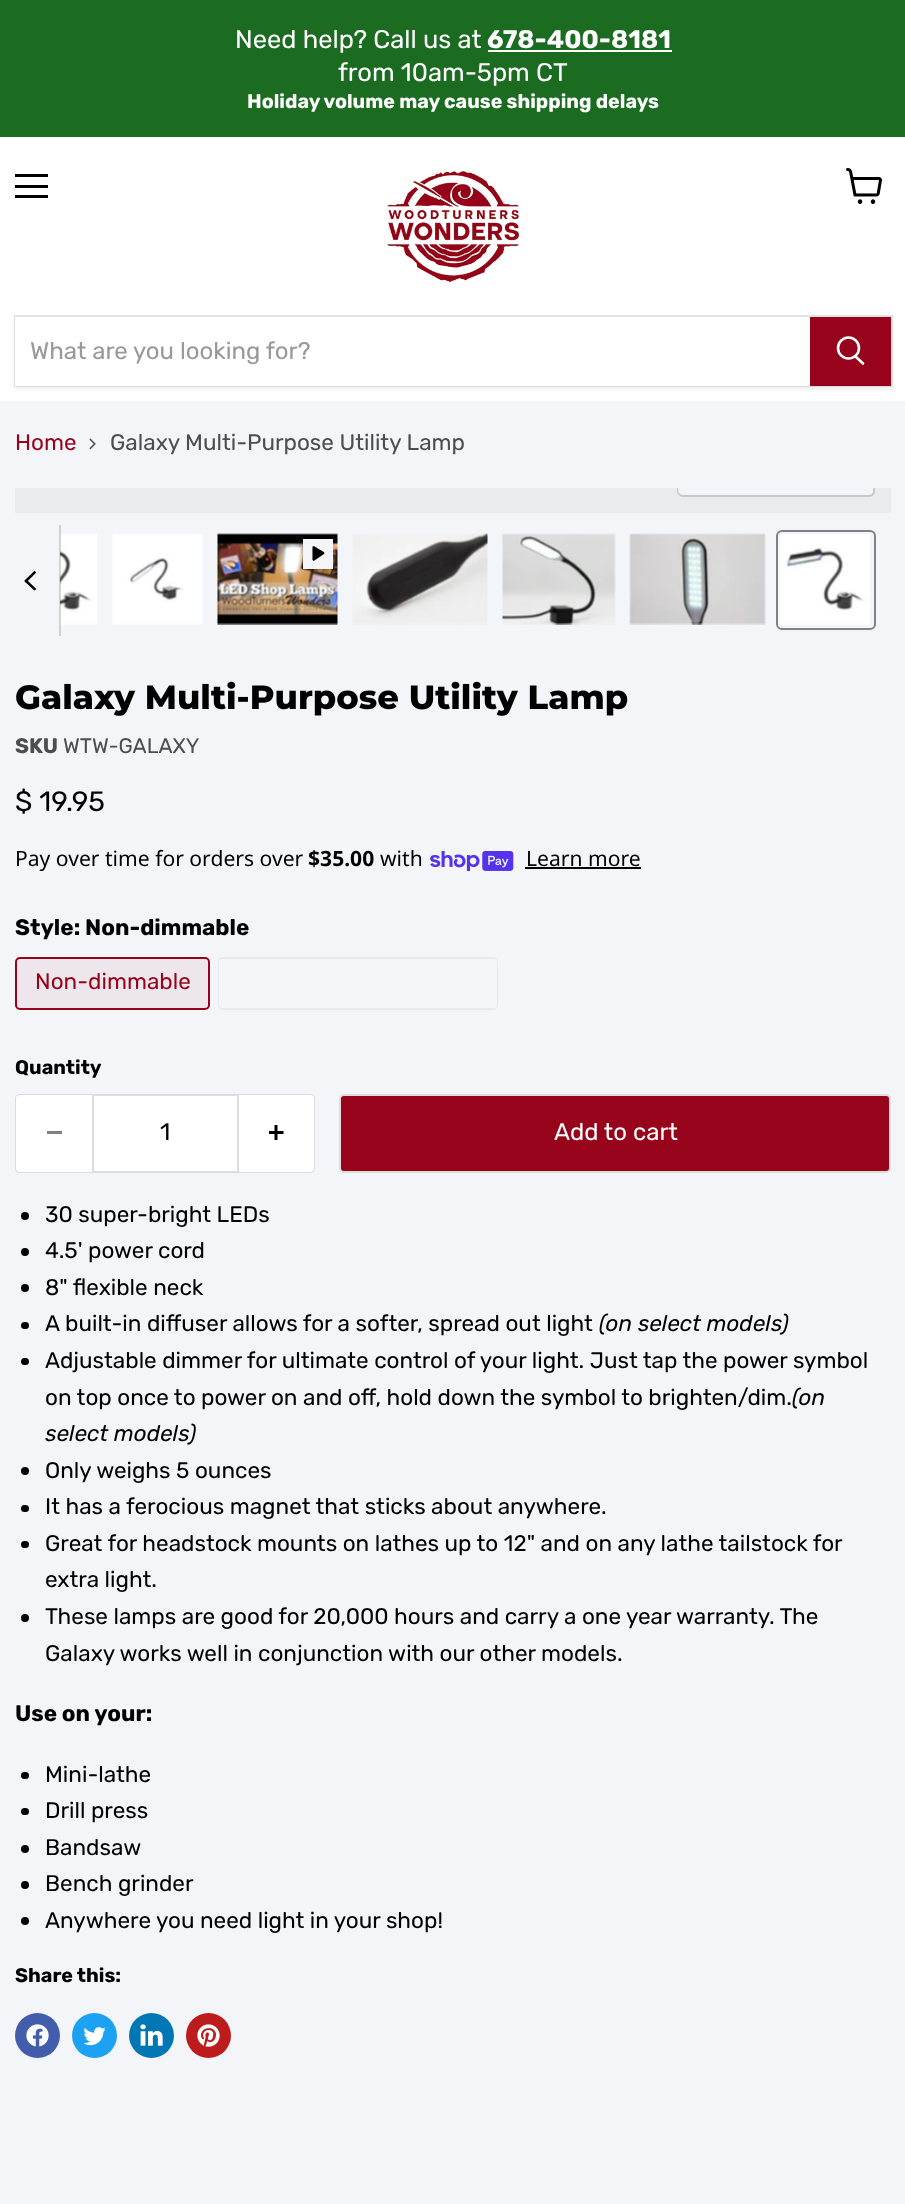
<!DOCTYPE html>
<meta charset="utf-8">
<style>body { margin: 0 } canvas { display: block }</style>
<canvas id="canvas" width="905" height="2204"></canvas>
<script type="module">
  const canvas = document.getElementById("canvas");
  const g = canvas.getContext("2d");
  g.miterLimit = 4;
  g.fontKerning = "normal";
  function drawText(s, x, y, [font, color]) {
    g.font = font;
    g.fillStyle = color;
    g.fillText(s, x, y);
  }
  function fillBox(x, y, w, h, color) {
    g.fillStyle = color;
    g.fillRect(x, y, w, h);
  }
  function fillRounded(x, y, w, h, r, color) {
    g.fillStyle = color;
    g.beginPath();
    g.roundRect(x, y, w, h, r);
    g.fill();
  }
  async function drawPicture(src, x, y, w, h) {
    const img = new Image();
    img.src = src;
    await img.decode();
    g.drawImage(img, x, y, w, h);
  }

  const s1 = ["25.5px Rubik", "#FFFFFF"];
  const s2 = ["bold 25.5px Rubik", "#FFFFFF"];
  const s3 = ["bold 19.7px Rubik", "#FFFFFF"];
  const s4 = ["24px Rubik", "#999999"];
  const s5 = ["22.5px Rubik", "#96031A"];
  const s6 = ["22.5px Rubik", "#4D4D4D"];
  const s7 = ["800 33.75px Montserrat", "#000000"];
  const s8 = ["bold 21px Rubik", "#4D4D4D"];
  const s9 = ["21px Rubik", "#4D4D4D"];
  const s10 = ["28px Rubik", "#000000"];
  const s11 = ["21.1px Noto Sans", "#000000"];
  const s12 = ["bold 21.1px Noto Sans", "#000000"];
  const s13 = ["bold 22.5px Rubik", "#000000"];
  const s14 = ["bold 19.7px Rubik", "#000000"];
  const s15 = ["24px Rubik", "#000000"];
  const s16 = ["24px Rubik", "#FFFFFF"];
  const s17 = ["22.5px Rubik", "#000000"];
  const s18 = ["italic 22.5px Rubik", "#000000"];

  fillBox(0, 0, 905, 2204, "#F3F5F9");
  fillBox(0, 0, 905, 137, "#1B6B21");
  drawText("Need help? Call us at", 235, 48, s1);
  drawText("678-400-8181", 487, 48, s2);
  fillBox(488, 50, 184, 2, "#FFFFFF");
  drawText("from 10am-5pm CT", 338, 81, s1);
  drawText("Holiday volume may cause shipping delays", 247, 108, s3);
  fillBox(0, 137, 905, 264, "#FFFFFF");
  fillBox(15, 174, 33, 3, "#000000");
  fillBox(15, 185, 33, 3, "#000000");
  fillBox(15, 195, 33, 3, "#000000");
  await drawPicture("pic1.png", 846, 168, 36, 36);
  await drawPicture("pic2.png", 387, 170, 135, 116);
  g.fillStyle = "rgba(122, 123, 125, 0.11)";
  g.filter = "blur(2px)";
  g.beginPath();
  g.rect(14, 318, 879, 72);
  g.fill();
  g.filter = "none";
  g.strokeStyle = "rgba(122, 123, 125, 0.2)";
  g.lineWidth = 2;
  g.strokeRect(15, 316, 877, 70);
  fillBox(15, 317, 795, 69, "#FFFFFF");
  drawText("What are you looking for?", 30, 359, s4);
  fillBox(810, 317, 81, 69, "#96031A");
  g.beginPath();
  g.moveTo(863, 363.5);
  g.lineTo(855.5, 356.5);
  g.strokeStyle = "#FFFFFF";
  g.lineWidth = 2.6;
  g.lineCap = "round";
  g.stroke();
  g.beginPath();
  g.arc(848.5, 348, 10.5, 0, Math.PI * 2);
  g.stroke();
  drawText("Home", 15, 450, s5);
  await drawPicture("pic3.png", 89, 438, 7, 12);
  drawText("Galaxy Multi-Purpose Utility Lamp", 110, 450, s6);
  fillBox(15, 488, 876, 25, "#E9EBEF");
  g.save();
  g.beginPath();
  g.rect(15, 488, 876, 25);
  g.clip();
  g.beginPath();
  g.roundRect(678, 454, 196, 42, 5);
  g.strokeStyle = "#C6C8CB";
  g.lineWidth = 2;
  g.stroke();
  g.restore();
  g.fillStyle = "rgba(243, 245, 249, 0.9)";
  g.beginPath();
  g.roundRect(678, 488, 195, 7, [0, 0, 5, 5]);
  g.fill();
  await drawPicture("pic4.png", 60, 534, 38, 91);
  fillBox(59, 525, 2, 111, "rgba(122, 123, 125, 0.3)");
  g.save();
  g.beginPath();
  g.moveTo(37, 569.5);
  g.lineTo(37, 590.5);
  g.lineTo(25, 590.5);
  g.lineTo(25, 569.5);
  g.closePath();
  g.clip();
  g.beginPath();
  g.moveTo(26, 581);
  g.lineTo(34.5, 589);
  g.strokeStyle = "#000000";
  g.lineCap = "square";
  g.stroke();
  g.restore();
  g.beginPath();
  g.moveTo(26, 581);
  g.lineTo(34.5, 572.5);
  g.strokeStyle = "#000000";
  g.lineCap = "square";
  g.stroke();
  await drawPicture("pic5.png", 112, 534, 91, 91);
  await drawPicture("pic6.png", 217, 533, 121, 92);
  g.strokeStyle = "rgba(0, 0, 0, 0.05)";
  g.lineWidth = 2;
  g.strokeRect(303, 538, 31, 31);
  fillBox(303, 539, 30, 30, "#F3F5F9");
  await drawPicture("pic7.png", 312, 546, 13, 15);
  await drawPicture("pic8.png", 352, 533, 136, 92);
  await drawPicture("pic9.png", 502, 533, 114, 92);
  await drawPicture("pic10.png", 629, 533, 137, 92);
  g.beginPath();
  g.roundRect(777, 531, 98, 98, 5);
  g.strokeStyle = "#818181";
  g.stroke();
  await drawPicture("pic11.png", 780, 534, 90, 91);
  drawText("Galaxy Multi-Purpose Utility Lamp", 15, 709, s7);
  drawText("SKU", 15, 753, s8);
  drawText("WTW-GALAXY", 63, 753, s9);
  drawText("$ 19.95", 15, 811, s10);
  drawText("Pay over time for orders over", 15, 866, s11);
  drawText("$35.00", 308, 866, s12);
  drawText("with", 380, 866, s11);
  await drawPicture("pic12.png", 430, 851, 84, 21);
  drawText("Learn more", 526, 866, s11);
  fillBox(525, 867, 116, 2, "#000000");
  drawText("Style: Non-dimmable", 15, 935, s13);
  g.fillStyle = "#EDE6EC";
  g.beginPath();
  g.roundRect(16, 958, 193, 51, 4);
  g.fill();
  g.strokeStyle = "#96031A";
  g.stroke();
  drawText("Non-dimmable", 35, 989, s5);
  g.beginPath();
  g.roundRect(219, 958, 278, 51, 4);
  g.strokeStyle = "#E8E9EB";
  g.stroke();
  g.fillStyle = "#F3F5F9";
  g.beginPath();
  g.moveTo(222, 959);
  g.bezierCurveTo(220, 959, 219, 960, 219, 962);
  g.lineTo(219, 1005);
  g.bezierCurveTo(219, 1007, 220, 1008, 222, 1008);
  g.lineTo(494, 1008);
  g.bezierCurveTo(496, 1008, 497, 1007, 497, 1005);
  g.lineTo(497, 962);
  g.bezierCurveTo(497, 960, 496, 959, 494, 959);
  g.closePath();
  g.fill();
  drawText("Quantity", 15, 1074, s14);
  g.fillStyle = "#FFFFFF";
  g.beginPath();
  g.roundRect(15, 1094, 77, 79, [5, 0, 0, 5]);
  g.fill();
  g.fillStyle = "#DDDDDD";
  g.beginPath();
  g.moveTo(20, 1094);
  g.lineTo(92, 1094);
  g.lineTo(92, 1173);
  g.lineTo(20, 1173);
  g.bezierCurveTo(17, 1173, 15, 1171, 15, 1168);
  g.lineTo(15, 1098);
  g.bezierCurveTo(15, 1096, 17, 1094, 20, 1094);
  g.closePath();
  g.moveTo(20, 1095);
  g.lineTo(92, 1095);
  g.lineTo(92, 1172);
  g.lineTo(20, 1172);
  g.bezierCurveTo(18, 1172, 16, 1170, 16, 1168);
  g.lineTo(16, 1098);
  g.bezierCurveTo(16, 1096, 18, 1095, 20, 1095);
  g.closePath();
  g.fill("evenodd");
  fillBox(47, 1131, 15, 3, "#808080");
  g.fillStyle = "#FFFFFF";
  g.beginPath();
  g.rect(93, 1095, 145, 77);
  g.fill();
  g.strokeStyle = "#DDDDDD";
  g.stroke();
  drawText("1", 160, 1140, s15);
  g.fillStyle = "#FFFFFF";
  g.beginPath();
  g.roundRect(239, 1094, 76, 79, [0, 5, 5, 0]);
  g.fill();
  g.fillStyle = "#DDDDDD";
  g.beginPath();
  g.moveTo(238, 1094);
  g.lineTo(310, 1094);
  g.bezierCurveTo(313, 1094, 315, 1096, 315, 1098);
  g.lineTo(315, 1168);
  g.bezierCurveTo(315, 1171, 313, 1173, 310, 1173);
  g.lineTo(238, 1173);
  g.closePath();
  g.moveTo(238, 1095);
  g.lineTo(310, 1095);
  g.bezierCurveTo(312, 1095, 314, 1096, 314, 1098);
  g.lineTo(314, 1168);
  g.bezierCurveTo(314, 1170, 312, 1172, 310, 1172);
  g.lineTo(238, 1172);
  g.closePath();
  g.fill("evenodd");
  await drawPicture("pic13.png", 269, 1125, 15, 15);
  g.fillStyle = "#96031A";
  g.beginPath();
  g.roundRect(340, 1095, 550, 77, 4);
  g.fill();
  g.stroke();
  drawText("Add to cart", 554, 1140, s16);
  g.fillStyle = "#000000";
  g.beginPath();
  g.arc(25, 1216, 4, 0, Math.PI * 2);
  g.fill();
  drawText("30 super-bright LEDs", 45, 1222, s17);
  g.beginPath();
  g.arc(25, 1252, 4, 0, Math.PI * 2);
  g.fill();
  drawText("4.5' power cord", 45, 1258, s17);
  g.beginPath();
  g.arc(25, 1288, 4, 0, Math.PI * 2);
  g.fill();
  drawText("8\" flexible neck", 45, 1295, s17);
  fillRounded(21, 1322, 8, 7, 3.5, "#000000");
  drawText("A built-in diffuser allows for a softer, spread out light", 45, 1331, s17);
  drawText("(on select models)", 599, 1331, s18);
  fillRounded(21, 1358, 8, 7, 3.5, "#000000");
  drawText("Adjustable dimmer for ultimate control of your light. Just tap the power symbol", 45, 1368, s17);
  drawText("on top once to power on and off, hold down the symbol to brighten/dim.", 45, 1405, s17);
  drawText("(on", 792, 1405, s18);
  drawText("select models)", 45, 1441, s18);
  g.beginPath();
  g.arc(25, 1471, 4, 0, Math.PI * 2);
  g.fill();
  drawText("Only weighs 5 ounces", 45, 1478, s17);
  fillRounded(21, 1505, 8, 7, 3.5, "#000000");
  drawText("It has a ferocious magnet that sticks about anywhere.", 45, 1514, s17);
  fillRounded(21, 1541, 8, 7, 3.5, "#000000");
  drawText("Great for headstock mounts on lathes up to 12\" and on any lathe tailstock for", 45, 1551, s17);
  drawText("extra light.", 45, 1587, s17);
  g.beginPath();
  g.arc(25, 1618, 4, 0, Math.PI * 2);
  g.fill();
  drawText("These lamps are good for 20,000 hours and carry a one year warranty. The", 45, 1624, s17);
  drawText("Galaxy works well in conjunction with our other models.", 45, 1661, s17);
  drawText("Use on your:", 15, 1721, s13);
  fillRounded(21, 1772, 8, 7, 3.5, "#000000");
  drawText("Mini-lathe", 45, 1782, s17);
  fillRounded(21, 1808, 8, 7, 3.5, "#000000");
  drawText("Drill press", 45, 1818, s17);
  g.beginPath();
  g.arc(25, 1849, 4, 0, Math.PI * 2);
  g.fill();
  drawText("Bandsaw", 45, 1855, s17);
  g.beginPath();
  g.arc(25, 1885, 4, 0, Math.PI * 2);
  g.fill();
  drawText("Bench grinder", 45, 1891, s17);
  g.beginPath();
  g.arc(25, 1921, 4, 0, Math.PI * 2);
  g.fill();
  drawText("Anywhere you need light in your shop!", 45, 1928, s17);
  drawText("Share this:", 15, 1982, s14);
  g.fillStyle = "#425DAB";
  g.beginPath();
  g.arc(37.5, 2035.5, 22.5, 0, Math.PI * 2);
  g.fill();
  await drawPicture("pic14.png", 26, 2024, 23, 23);
  g.fillStyle = "#1DA1F2";
  g.beginPath();
  g.arc(94.5, 2035.5, 22.5, 0, Math.PI * 2);
  g.fill();
  await drawPicture("pic15.png", 83, 2027, 23, 19);
  g.fillStyle = "#0077B5";
  g.beginPath();
  g.arc(151.5, 2035.5, 22.5, 0, Math.PI * 2);
  g.fill();
  await drawPicture("pic16.png", 140, 2024, 23, 22);
  g.fillStyle = "#BD1C1C";
  g.beginPath();
  g.arc(208.5, 2035.5, 22.5, 0, Math.PI * 2);
  g.fill();
  await drawPicture("pic17.png", 197, 2024, 23, 23);
</script>
